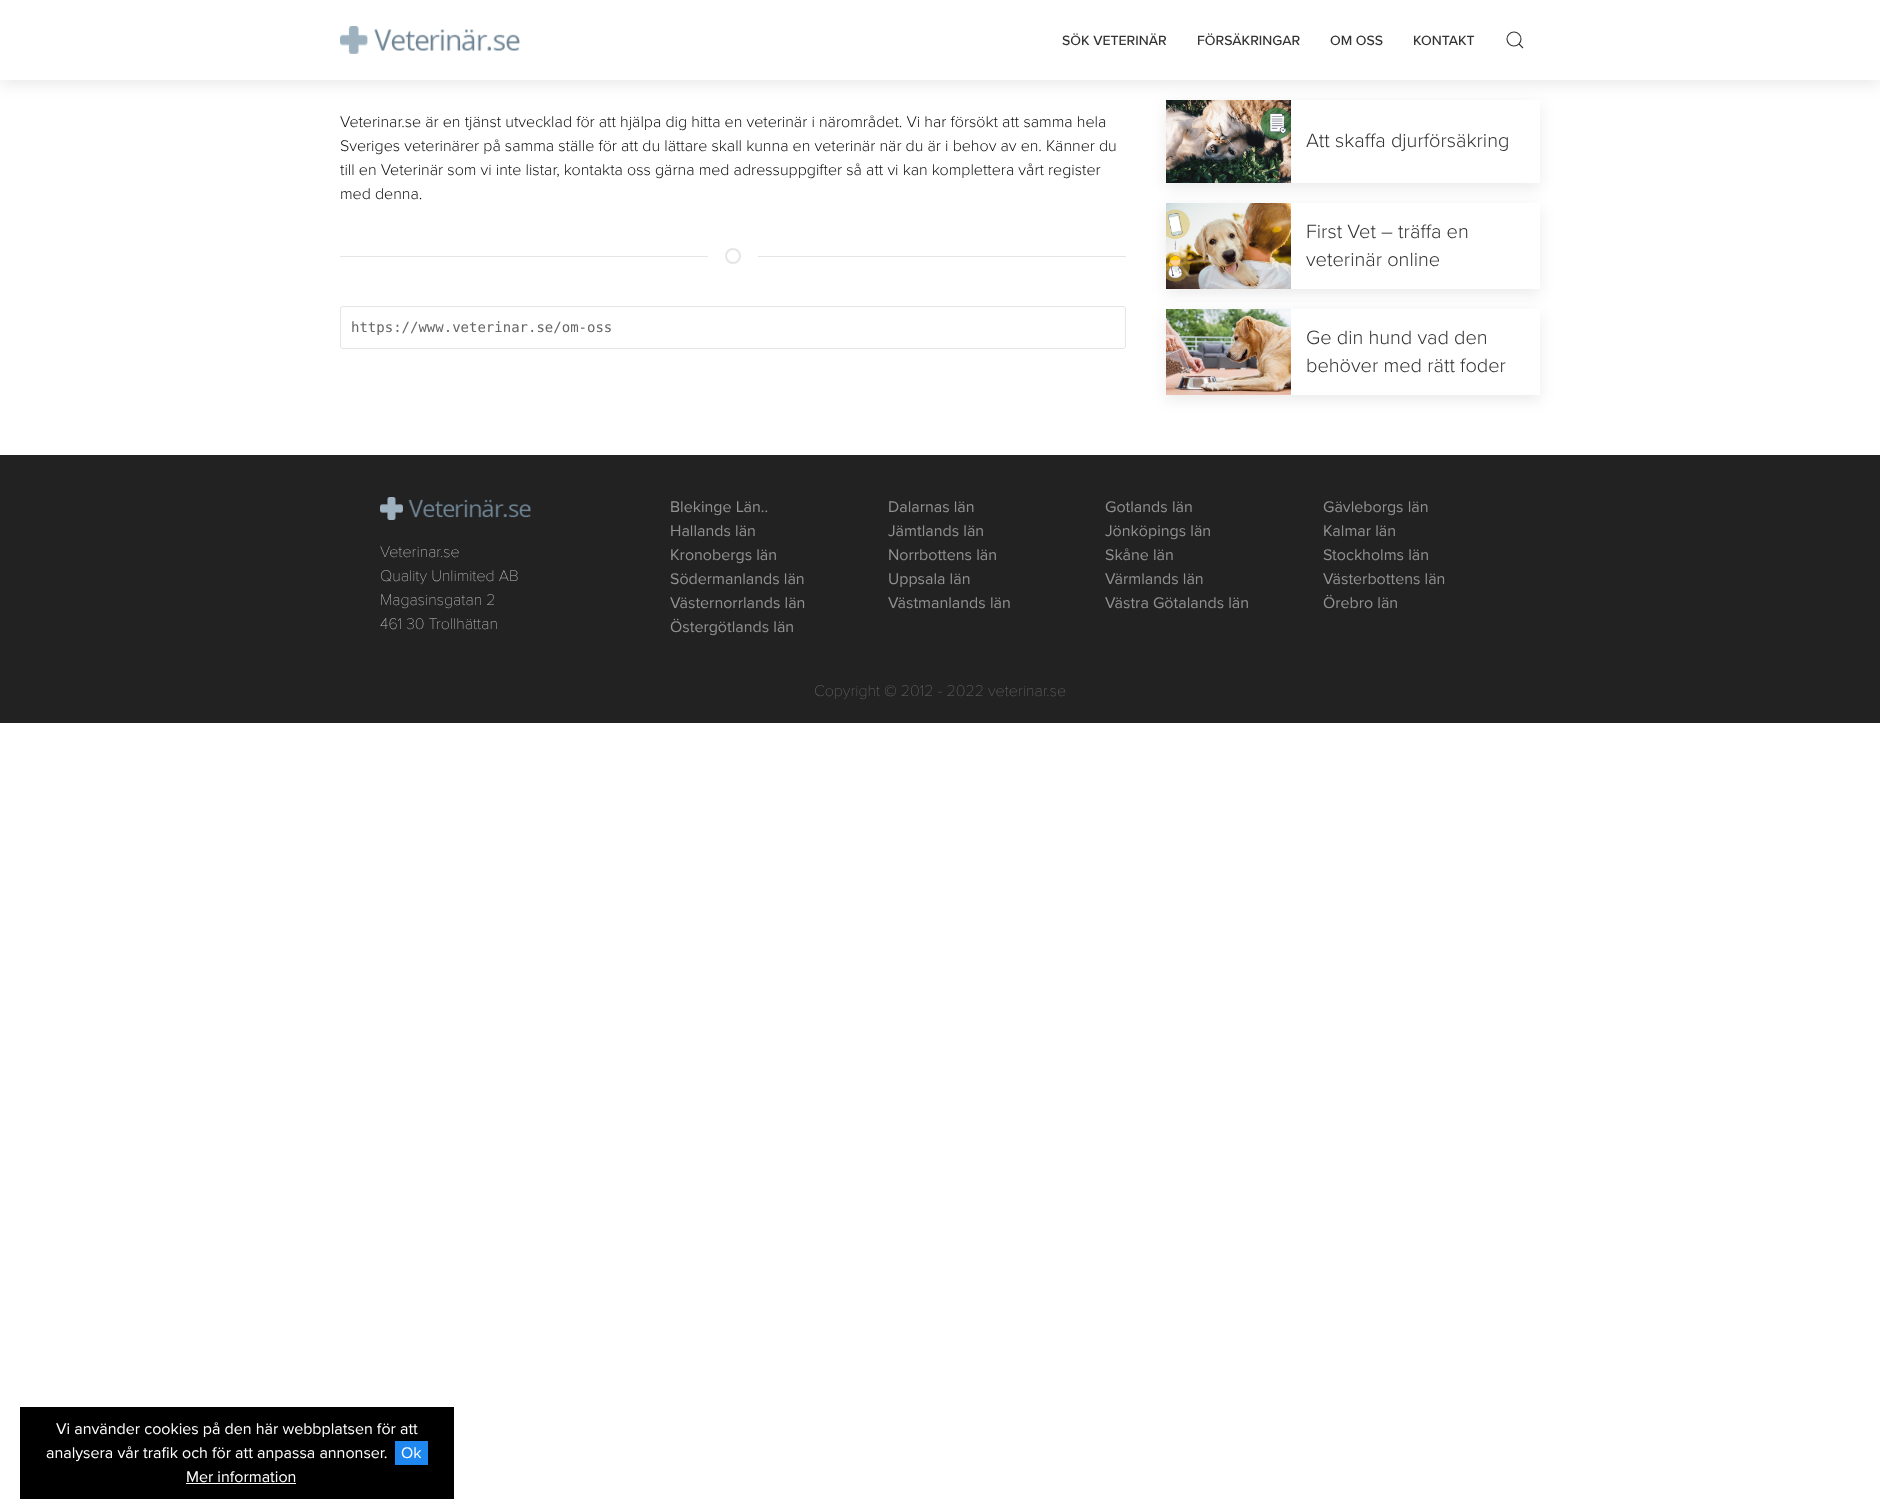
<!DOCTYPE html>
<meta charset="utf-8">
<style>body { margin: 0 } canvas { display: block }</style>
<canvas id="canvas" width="1880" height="1509"></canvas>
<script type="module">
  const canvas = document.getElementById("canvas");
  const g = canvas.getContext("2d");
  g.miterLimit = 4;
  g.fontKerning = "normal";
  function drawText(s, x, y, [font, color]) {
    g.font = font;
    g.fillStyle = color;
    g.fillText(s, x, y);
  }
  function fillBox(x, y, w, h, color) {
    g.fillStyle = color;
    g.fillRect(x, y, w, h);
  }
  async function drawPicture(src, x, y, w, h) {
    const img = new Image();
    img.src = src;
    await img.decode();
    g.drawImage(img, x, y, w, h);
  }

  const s1 = ["500 14px Proxima Nova", "#333333"];
  const s2 = ["300 16px Proxima Nova", "#111111"];
  const s3 = ["14px DejaVu Sans Mono", "#666666"];
  const s4 = ["300 20px Proxima Nova", "#333333"];
  const s5 = ["100 16px Proxima Nova", "#BDBDBD"];
  const s6 = ["16px Proxima Nova", "#919191"];
  const s7 = ["100 16px Proxima Nova", "#666666"];
  const s8 = ["16px Proxima Nova", "#FFFFFF"];

  fillBox(0, 0, 1880, 1509, "#FFFFFF");
  g.save();
  g.beginPath();
  g.moveTo(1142, 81);
  g.lineTo(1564, 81);
  g.lineTo(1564, 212);
  g.lineTo(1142, 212);
  g.closePath();
  g.moveTo(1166, 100);
  g.lineTo(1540, 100);
  g.lineTo(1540, 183);
  g.lineTo(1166, 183);
  g.closePath();
  g.clip("evenodd");
  g.fillStyle = "rgba(0, 0, 0, 0.08)";
  g.filter = "blur(7.5px)";
  g.beginPath();
  g.rect(1166, 105, 374, 83);
  g.fill();
  g.filter = "none";
  g.restore();
  await drawPicture("pic2.png", 1166, 100, 125, 83);
  g.fillStyle = "rgba(0, 0, 0, 0.08)";
  g.filter = "blur(7.5px)";
  g.beginPath();
  g.rect(0, 5, 1880, 80);
  g.fill();
  g.filter = "none";
  fillBox(0, 0, 1880, 80, "#FFFFFF");
  await drawPicture("pic1.png", 340, 26, 180, 28);
  drawText("SÖK VETERINÄR", 1062, 45, s1);
  drawText("FÖRSÄKRINGAR", 1197, 45, s1);
  drawText("OM OSS", 1330, 45, s1);
  drawText("KONTAKT", 1413, 45, s1);
  g.beginPath();
  g.arc(1514, 39, 7, 0, Math.PI * 2);
  g.strokeStyle = "#333333";
  g.lineWidth = 1.1;
  g.stroke();
  g.beginPath();
  g.moveTo(1519, 44);
  g.lineTo(1523, 48);
  g.closePath();
  g.stroke();
  drawText("Veterinar.se är en tjänst utvecklad för att hjälpa dig hitta en veterinär i närområdet. Vi har försökt att samma hela", 340, 127, s2);
  drawText("Sveriges veterinärer på samma ställe för att du lättare skall kunna en veterinär när du är i behov av en. Känner du", 340, 151, s2);
  drawText("till en Veterinär som vi inte listar, kontakta oss gärna med adressuppgifter så att vi kan komplettera vårt register", 340, 175, s2);
  drawText("med denna.", 340, 199, s2);
  g.beginPath();
  g.arc(733, 256, 7, 0, Math.PI * 2);
  g.strokeStyle = "#E5E5E5";
  g.lineWidth = 2;
  g.stroke();
  fillBox(340, 256, 368, 1, "#E5E5E5");
  fillBox(758, 256, 368, 1, "#E5E5E5");
  g.beginPath();
  g.roundRect(340.5, 306.5, 785, 42, 2.5);
  g.lineWidth = 1;
  g.stroke();
  drawText("https://www.veterinar.se/om-oss", 351, 332, s3);
  drawText("Att skaffa djurförsäkring", 1306, 147, s4);
  g.save();
  g.beginPath();
  g.moveTo(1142, 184);
  g.lineTo(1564, 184);
  g.lineTo(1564, 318);
  g.lineTo(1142, 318);
  g.closePath();
  g.moveTo(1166, 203);
  g.lineTo(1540, 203);
  g.lineTo(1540, 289);
  g.lineTo(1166, 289);
  g.closePath();
  g.clip("evenodd");
  g.fillStyle = "rgba(0, 0, 0, 0.08)";
  g.filter = "blur(7.5px)";
  g.beginPath();
  g.rect(1166, 208, 374, 86);
  g.fill();
  g.filter = "none";
  g.restore();
  await drawPicture("pic3.png", 1166, 203, 125, 86);
  drawText("First Vet – träffa en", 1306, 238, s4);
  drawText("veterinär online", 1306, 266, s4);
  g.save();
  g.beginPath();
  g.moveTo(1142, 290);
  g.lineTo(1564, 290);
  g.lineTo(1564, 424);
  g.lineTo(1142, 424);
  g.closePath();
  g.moveTo(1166, 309);
  g.lineTo(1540, 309);
  g.lineTo(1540, 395);
  g.lineTo(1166, 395);
  g.closePath();
  g.clip("evenodd");
  g.fillStyle = "rgba(0, 0, 0, 0.08)";
  g.filter = "blur(7.5px)";
  g.beginPath();
  g.rect(1166, 314, 374, 86);
  g.fill();
  g.filter = "none";
  g.restore();
  await drawPicture("pic4.png", 1166, 309, 125, 86);
  drawText("Ge din hund vad den", 1306, 344, s4);
  drawText("behöver med rätt foder", 1306, 372, s4);
  fillBox(0, 455, 1880, 268, "#222222");
  await drawPicture("pic5.png", 380, 497, 151, 23);
  drawText("Veterinar.se", 380, 557, s5);
  drawText("Quality Unlimited AB", 380, 581, s5);
  drawText("Magasinsgatan 2", 380, 605, s5);
  drawText("461 30 Trollhättan", 380, 629, s5);
  drawText("Blekinge Län..", 670, 512, s6);
  drawText("Dalarnas län", 888, 512, s6);
  drawText("Gotlands län", 1105, 512, s6);
  drawText("Gävleborgs län", 1323, 512, s6);
  drawText("Hallands län", 670, 536, s6);
  drawText("Jämtlands län", 888, 536, s6);
  drawText("Jönköpings län", 1105, 536, s6);
  drawText("Kalmar län", 1323, 536, s6);
  drawText("Kronobergs län", 670, 560, s6);
  drawText("Norrbottens län", 888, 560, s6);
  drawText("Skåne län", 1105, 560, s6);
  drawText("Stockholms län", 1323, 560, s6);
  drawText("Södermanlands län", 670, 584, s6);
  drawText("Uppsala län", 888, 584, s6);
  drawText("Värmlands län", 1105, 584, s6);
  drawText("Västerbottens län", 1323, 584, s6);
  drawText("Västernorrlands län", 670, 608, s6);
  drawText("Västmanlands län", 888, 608, s6);
  drawText("Västra Götalands län", 1105, 608, s6);
  drawText("Örebro län", 1323, 608, s6);
  drawText("Östergötlands län", 670, 632, s6);
  drawText("Copyright © 2012 - 2022 veterinar.se", 814, 696, s7);
  fillBox(20, 1407, 434, 92, "#000000");
  drawText("Vi använder cookies på den här webbplatsen för att", 56, 1434, s8);
  drawText("analysera vår trafik och för att anpassa annonser.", 46, 1458, s8);
  fillBox(395, 1441, 33, 24, "#1E87F0");
  drawText("Ok", 401, 1458, s8);
  drawText("Mer information", 186, 1482, s8);
  fillBox(186, 1483, 110, 1, "#FFFFFF");
</script>
